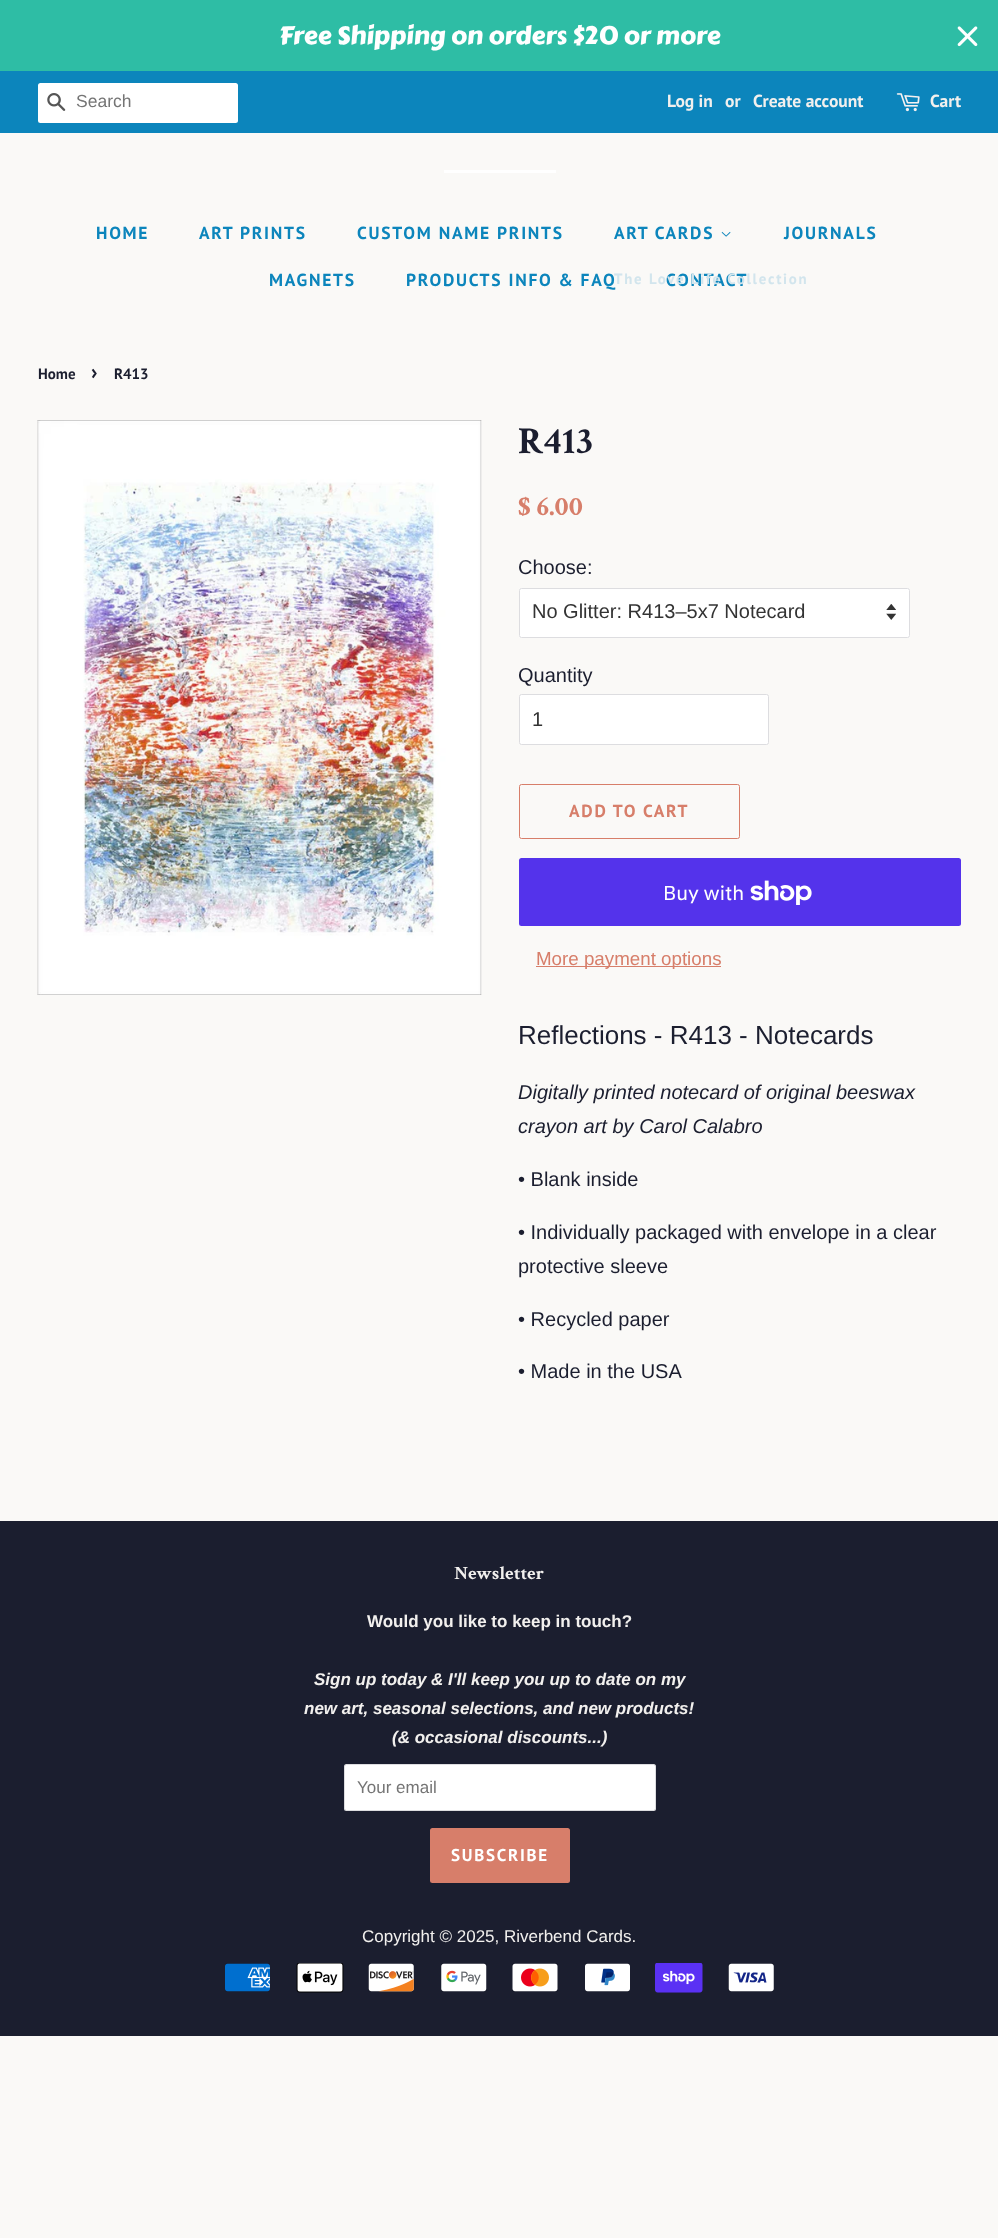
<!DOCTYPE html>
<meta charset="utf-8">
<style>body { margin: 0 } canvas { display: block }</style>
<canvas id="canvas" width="998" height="2238"></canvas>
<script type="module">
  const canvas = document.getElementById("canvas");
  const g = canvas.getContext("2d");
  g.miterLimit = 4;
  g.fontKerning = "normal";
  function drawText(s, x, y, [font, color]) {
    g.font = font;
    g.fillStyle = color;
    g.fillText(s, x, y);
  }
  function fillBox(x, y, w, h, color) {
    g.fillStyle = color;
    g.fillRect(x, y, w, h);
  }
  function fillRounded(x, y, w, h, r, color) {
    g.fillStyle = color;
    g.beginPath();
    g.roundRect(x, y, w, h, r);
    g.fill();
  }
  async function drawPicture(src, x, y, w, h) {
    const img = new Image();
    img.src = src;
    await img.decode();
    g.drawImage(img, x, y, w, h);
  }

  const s1 = ["25px Carter One", "#FFFFFF"];
  const s2 = ["17.5px Liberation Sans", "#757575"];
  const s3 = ["bold 17.5px PT Sans", "#F2F0EE"];
  const s4 = ["bold 17.5px PT Sans", "#0C85BC"];
  const s5 = ["bold 14.9px PT Sans", "#D2E5ED"];
  const s6 = ["bold 15px PT Sans", "#1B1E2F"];
  const s7 = ["bold 21px PT Sans", "#1B1E2F"];
  const s8 = ["bold 38px Crimson Text", "#1B1E2F"];
  const s9 = ["bold 28px Crimson Text", "#D77E6A"];
  const s10 = ["20px Liberation Sans", "#1B1E2F"];
  const s11 = ["20px Liberation Sans", "#333333"];
  const s12 = ["bold 17.5px PT Sans", "#D77E6A"];
  const s13 = ["20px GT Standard", "#FFFFFF"];
  const s14 = ["18.75px Liberation Sans", "#D77E6A"];
  const s15 = ["26px Liberation Sans", "#1B1E2F"];
  const s16 = ["italic 20px Liberation Sans", "#1B1E2F"];
  const s17 = ["bold 18.75px Crimson Text", "#F2F0EE"];
  const s18 = ["bold 17px Liberation Sans", "#F2F0EE"];
  const s19 = ["italic bold 17px Liberation Sans", "#F2F0EE"];
  const s20 = ["17px Liberation Sans", "#757575"];
  const s21 = ["bold 17px PT Sans", "#FFFFFF"];
  const s22 = ["17px Liberation Sans", "#F2F0EE"];

  fillBox(0, 0, 998, 2238, "#FAF9F7");
  fillBox(0, 0, 998, 71, "#2EBDA5");
  drawText("Free Shipping on orders $20 or more", 279, 44, s1);
  await drawPicture("pic1.png", 957, 26, 21, 21);
  fillBox(0, 71, 998, 62, "#0C85BC");
  fillRounded(38, 83, 200, 40, 2.5, "#FFFFFF");
  await drawPicture("pic2.png", 47, 93, 19, 18);
  drawText("Search", 76, 107, s2);
  drawText("Log in", 667, 107, s3);
  drawText("or", 725, 107, s3);
  drawText("Create account", 753, 107, s3);
  await drawPicture("pic3.png", 896, 93, 24, 19);
  drawText("Cart", 930, 107, s3);
  fillBox(444, 170, 112, 3, "#FFFFFF");
  g.letterSpacing = "1.75px";
  drawText("HOME", 96, 239, s4);
  drawText("ART PRINTS", 199, 239, s4);
  drawText("CUSTOM NAME PRINTS", 357, 239, s4);
  drawText("ART CARDS", 614, 239, s4);
  await drawPicture("pic4.png", 721, 231, 10, 6);
  drawText("PRODUCTS INFO & FAQ", 406, 286, s4);
  drawText("CONTACT", 666, 286, s4);
  drawText("The Love Life Collection", 614, 284, s5);
  drawText("JOURNALS", 784, 239, s4);
  drawText("MAGNETS", 269, 286, s4);
  g.letterSpacing = "0px";
  drawText("Home", 38, 379, s6);
  drawText("›", 91, 379, s7);
  drawText("R413", 114, 379, s6);
  await drawPicture("pic5.png", 37, 420, 445, 575);
  drawText("R413", 518, 453, s8);
  drawText("$ 6.00", 518, 515, s9);
  drawText("Choose:", 518, 574, s10);
  fillRounded(519, 588, 391, 50, 2.5, "#FFFFFF");
  await drawPicture("pic6.png", 886, 604, 10, 16);
  g.beginPath();
  g.roundRect(519.5, 588.5, 390, 49, 2);
  g.strokeStyle = "#DDDDE0";
  g.stroke();
  drawText("No Glitter: R413–5x7 Notecard", 532, 618, s11);
  drawText("Quantity", 518, 682, s10);
  g.fillStyle = "#FFFFFF";
  g.beginPath();
  g.roundRect(519.5, 694.5, 249, 50, 2);
  g.fill();
  g.stroke();
  drawText("1", 532, 726, s11);
  g.beginPath();
  g.roundRect(519.5, 784.5, 220, 54, 2);
  g.strokeStyle = "#D77E6A";
  g.stroke();
  g.letterSpacing = "1.75px";
  drawText("ADD TO CART", 569, 817, s12);
  fillRounded(519, 858, 442, 68, 2.5, "#5433EB");
  g.letterSpacing = "0px";
  drawText("Buy with", 663, 900, s13);
  await drawPicture("pic7.png", 750, 880, 62, 25);
  fillBox(536, 966, 185, 1, "#D77E6A");
  drawText("More payment options", 536, 965, s14);
  drawText("Reflections - R413 - Notecards", 518, 1044, s15);
  drawText("Digitally printed notecard of original beeswax", 518, 1099, s16);
  drawText("crayon art by Carol Calabro", 518, 1133, s16);
  drawText("• Blank inside", 518, 1186, s10);
  drawText("• Individually packaged with envelope in a clear", 518, 1239, s10);
  drawText("protective sleeve", 518, 1273, s10);
  drawText("• Recycled paper", 518, 1326, s10);
  drawText("• Made in the USA", 518, 1378, s10);
  fillBox(0, 1521, 998, 515, "#1B1E2F");
  drawText("Newsletter", 454, 1579, s17);
  drawText("Would you like to keep in touch?", 367, 1627, s18);
  drawText("Sign up today & I'll keep you up to date on my", 314, 1685, s19);
  drawText("new art, seasonal selections, and new products!", 304, 1714, s19);
  drawText("(& occasional discounts...)", 392, 1743, s19);
  fillRounded(344, 1764, 312, 47, 2.5, "#FFFFFF");
  g.beginPath();
  g.roundRect(344.5, 1764.5, 311, 46, 2);
  g.strokeStyle = "rgba(27, 30, 47, 0.15)";
  g.stroke();
  drawText("Your email", 357, 1793, s20);
  fillRounded(430, 1828, 140, 55, 2.5, "#D77E6A");
  g.letterSpacing = "1.75px";
  drawText("SUBSCRIBE", 451, 1861, s21);
  g.letterSpacing = "0px";
  drawText("Copyright © 2025, Riverbend Cards.", 362, 1942, s22);
  await drawPicture("pic8.png", 225, 1963, 45, 29);
  await drawPicture("pic9.png", 296, 1963, 48, 30);
  await drawPicture("pic10.png", 368, 1963, 46, 29);
  await drawPicture("pic11.png", 441, 1963, 46, 29);
  await drawPicture("pic12.png", 512, 1963, 46, 29);
  await drawPicture("pic13.png", 585, 1963, 45, 29);
  await drawPicture("pic14.png", 655, 1963, 48, 30);
  await drawPicture("pic15.png", 728, 1963, 46, 29);
</script>
